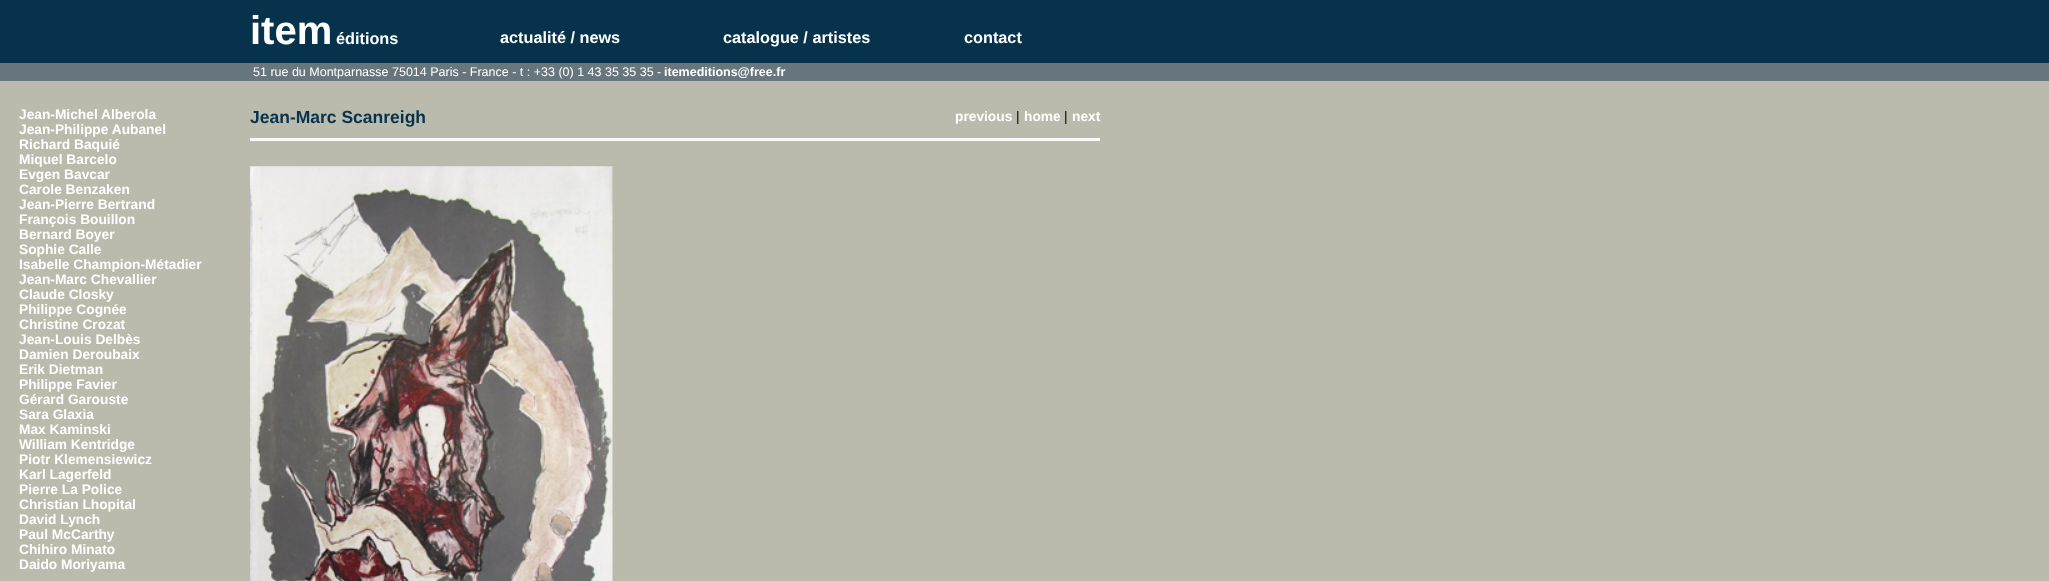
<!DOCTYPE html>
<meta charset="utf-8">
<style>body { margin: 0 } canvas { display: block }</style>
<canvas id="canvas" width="2049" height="581"></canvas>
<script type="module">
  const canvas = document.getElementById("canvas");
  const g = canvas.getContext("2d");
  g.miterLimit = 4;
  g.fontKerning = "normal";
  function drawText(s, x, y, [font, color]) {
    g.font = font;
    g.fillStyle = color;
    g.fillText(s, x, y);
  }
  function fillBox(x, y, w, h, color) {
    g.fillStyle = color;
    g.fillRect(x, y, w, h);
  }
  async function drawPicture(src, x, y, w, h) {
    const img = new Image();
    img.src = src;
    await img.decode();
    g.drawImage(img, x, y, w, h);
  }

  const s1 = ["bold 40px Liberation Sans", "#FFFFFF"];
  const s2 = ["bold 16.25px Liberation Sans", "#FFFFFF"];
  const s3 = ["12.5px Liberation Sans", "#FFFFFF"];
  const s4 = ["bold 12.5px Liberation Sans", "#FFFFFF"];
  const s5 = ["bold 13.75px Liberation Sans", "#FFFFFF"];
  const s6 = ["bold 17.5px Liberation Sans", "#06334B"];
  const s7 = ["13.75px Liberation Sans", "#000000"];

  fillBox(0, 0, 2049, 581, "#BABBAD");
  fillBox(0, 0, 2049, 63, "#06334B");
  drawText("item", 250, 44, s1);
  drawText("éditions", 336, 44, s2);
  drawText("actualité / news", 500, 43, s2);
  drawText("catalogue / artistes", 723, 43, s2);
  drawText("contact", 964, 43, s2);
  fillBox(0, 63, 250, 18, "#67767C");
  fillBox(250, 63, 1799, 18, "#67767C");
  drawText("51 rue du Montparnasse 75014 Paris - France - t : +33 (0) 1 43 35 35 35 -", 253, 76, s3);
  drawText("itemeditions@free.fr", 664, 76, s4);
  drawText("Jean-Michel Alberola", 19, 119, s5);
  drawText("Jean-Philippe Aubanel", 19, 134, s5);
  drawText("Richard Baquié", 19, 149, s5);
  drawText("Miquel Barcelo", 19, 164, s5);
  drawText("Evgen Bavcar", 19, 179, s5);
  drawText("Carole Benzaken", 19, 194, s5);
  drawText("Jean-Pierre Bertrand", 19, 209, s5);
  drawText("François Bouillon", 19, 224, s5);
  drawText("Bernard Boyer", 19, 239, s5);
  drawText("Sophie Calle", 19, 254, s5);
  drawText("Isabelle Champion-Métadier", 19, 269, s5);
  drawText("Jean-Marc Chevallier", 19, 284, s5);
  drawText("Claude Closky", 19, 299, s5);
  drawText("Philippe Cognée", 19, 314, s5);
  drawText("Christine Crozat", 19, 329, s5);
  drawText("Jean-Louis Delbès", 19, 344, s5);
  drawText("Damien Deroubaix", 19, 359, s5);
  drawText("Erik Dietman", 19, 374, s5);
  drawText("Philippe Favier", 19, 389, s5);
  drawText("Gérard Garouste", 19, 404, s5);
  drawText("Sara Glaxia", 19, 419, s5);
  drawText("Max Kaminski", 19, 434, s5);
  drawText("William Kentridge", 19, 449, s5);
  drawText("Piotr Klemensiewicz", 19, 464, s5);
  drawText("Karl Lagerfeld", 19, 479, s5);
  drawText("Pierre La Police", 19, 494, s5);
  drawText("Christian Lhopital", 19, 509, s5);
  drawText("David Lynch", 19, 524, s5);
  drawText("Paul McCarthy", 19, 539, s5);
  drawText("Chihiro Minato", 19, 554, s5);
  drawText("Daido Moriyama", 19, 569, s5);
  drawText("Jean-Marc Scanreigh", 250, 123, s6);
  drawText("previous", 955, 121, s5);
  drawText("|", 1016, 121, s7);
  drawText("home", 1024, 121, s5);
  drawText("|", 1064, 121, s7);
  drawText("next", 1072, 121, s5);
  fillBox(250, 138, 850, 3, "#FBFBFA");
  await drawPicture("pic1.png", 250, 166, 363, 415);
</script>
